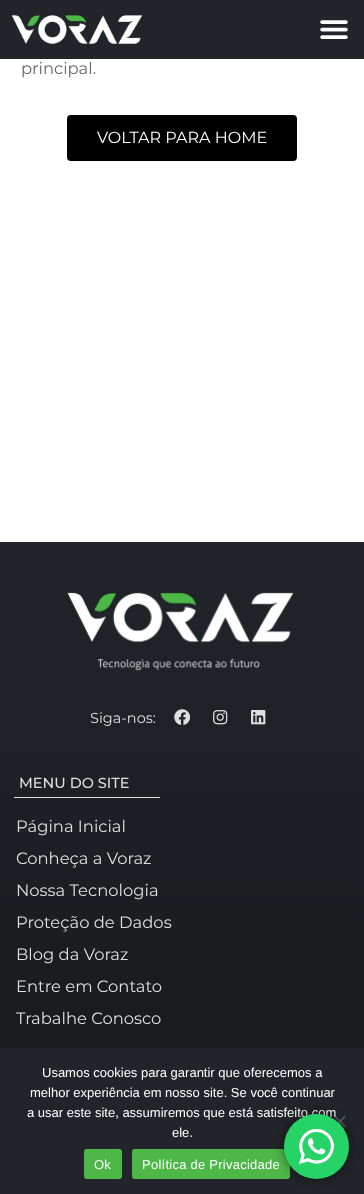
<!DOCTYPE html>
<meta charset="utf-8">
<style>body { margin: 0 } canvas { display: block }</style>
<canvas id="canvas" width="364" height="1194"></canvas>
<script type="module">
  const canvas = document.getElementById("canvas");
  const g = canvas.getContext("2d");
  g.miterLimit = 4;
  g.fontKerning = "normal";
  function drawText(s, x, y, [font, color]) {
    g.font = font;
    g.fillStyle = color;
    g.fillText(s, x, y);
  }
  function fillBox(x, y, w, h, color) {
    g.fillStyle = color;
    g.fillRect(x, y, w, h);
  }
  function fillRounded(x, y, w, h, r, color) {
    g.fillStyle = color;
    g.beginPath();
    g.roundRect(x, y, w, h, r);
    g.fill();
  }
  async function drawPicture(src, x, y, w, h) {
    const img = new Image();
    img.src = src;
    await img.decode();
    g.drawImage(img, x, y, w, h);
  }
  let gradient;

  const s1 = ["16.4px Montserrat", "#666666"];
  const s2 = ["16px Montserrat", "#FFFFFF"];
  const s3 = ["14.5px Montserrat", "#DFDFDF"];
  const s4 = ["500 14.5px Montserrat", "#DFDFDF"];
  const s5 = ["16.4px Montserrat", "#DFDFDF"];
  const s6 = ["13px Liberation Sans", "#FFFFFF"];

  fillBox(0, 0, 364, 1194, "#FFFFFF");
  fillBox(0, 0, 364, 59, "#212529");
  await drawPicture("pic1.png", 11, 15, 132, 29);
  await drawPicture("pic2.png", 320, 20, 28, 19);
  drawText("principal.", 21, 74, s1);
  fillRounded(67, 115, 230, 46, 4, "#000000");
  drawText("VOLTAR PARA HOME", 97, 143, s2);
  gradient = g.createLinearGradient(182, 542, 182, 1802);
  gradient.addColorStop(0, "#212529");
  gradient.addColorStop(1, "#0C0D0E");
  g.fillStyle = gradient;
  g.fillRect(0, 542, 364, 506);
  await drawPicture("pic3.png", 67, 592, 227, 79);
  drawText("Siga-nos:", 90, 723, s3);
  await drawPicture("pic4.png", 174, 709, 16, 16);
  await drawPicture("pic5.png", 213, 710, 15, 15);
  await drawPicture("pic6.png", 251, 710, 15, 15);
  fillBox(14, 797, 146, 1, "#DDDDDD");
  drawText("MENU DO SITE", 19, 788, s4);
  drawText("Página Inicial", 16, 832, s5);
  drawText("Conheça a Voraz", 16, 864, s5);
  drawText("Nossa Tecnologia", 16, 896, s5);
  drawText("Proteção de Dados", 16, 928, s5);
  drawText("Blog da Voraz", 16, 960, s5);
  drawText("Entre em Contato", 16, 992, s5);
  drawText("Trabalhe Conosco", 16, 1024, s5);
  fillBox(0, 1048, 364, 146, "#212529");
  drawText("Usamos cookies para garantir que oferecemos a", 42, 1077, s6);
  drawText("melhor experiência em nosso site. Se você continuar", 30, 1097, s6);
  drawText("a usar este site, assumiremos que está satisfeito com", 27, 1117, s6);
  drawText("ele.", 172, 1137, s6);
  g.fillStyle = "#515355";
  g.beginPath();
  g.moveTo(344.5, 1115.5);
  g.lineTo(346, 1117);
  g.lineTo(335.5, 1127.5);
  g.lineTo(334, 1126);
  g.closePath();
  g.fill();
  g.fillStyle = "rgba(128, 128, 128, 0.5)";
  g.beginPath();
  g.moveTo(334, 1117);
  g.lineTo(335.5, 1115.5);
  g.lineTo(346, 1126);
  g.lineTo(344.5, 1127.5);
  g.closePath();
  g.fill();
  fillRounded(84, 1149, 38, 30, 3, "#4DB848");
  g.letterSpacing = "0.25px";
  drawText("Ok", 94, 1169, s6);
  fillRounded(132, 1149, 158, 30, 3, "#4DB848");
  drawText("Política de Privacidade", 142, 1169, s6);
  g.fillStyle = "rgba(0, 0, 0, 0.5)";
  g.filter = "blur(5.5px)";
  g.beginPath();
  g.roundRect(284, 1114, 65, 65, 32.5);
  g.fill();
  g.filter = "none";
  g.fillStyle = "#25D366";
  g.beginPath();
  g.arc(316.5, 1146.5, 32.5, 0, Math.PI * 2);
  g.fill();
  await drawPicture("pic7.png", 299, 1129, 35, 35);
</script>
